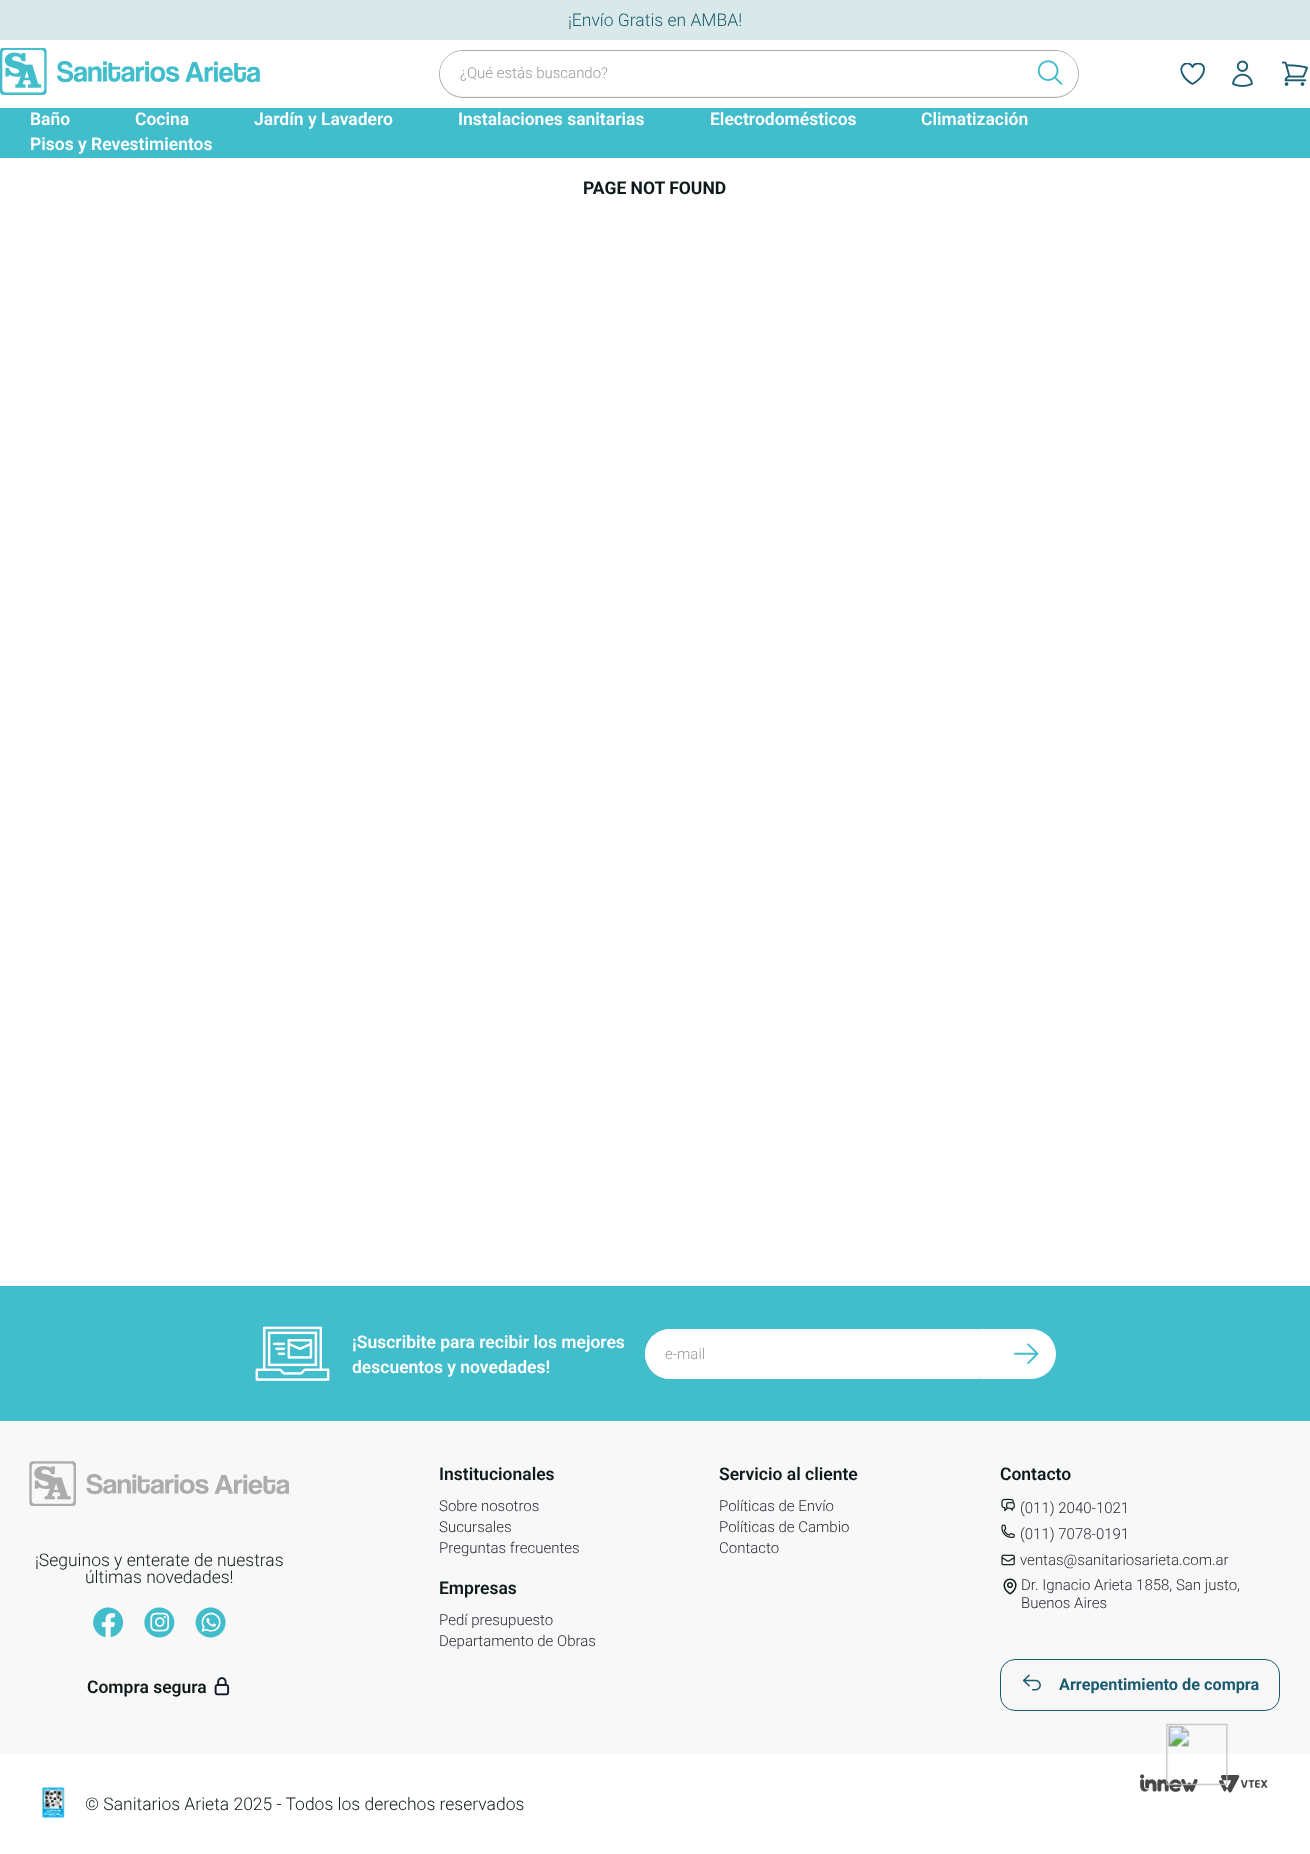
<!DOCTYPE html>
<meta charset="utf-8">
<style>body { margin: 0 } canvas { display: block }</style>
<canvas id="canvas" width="1310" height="1854"></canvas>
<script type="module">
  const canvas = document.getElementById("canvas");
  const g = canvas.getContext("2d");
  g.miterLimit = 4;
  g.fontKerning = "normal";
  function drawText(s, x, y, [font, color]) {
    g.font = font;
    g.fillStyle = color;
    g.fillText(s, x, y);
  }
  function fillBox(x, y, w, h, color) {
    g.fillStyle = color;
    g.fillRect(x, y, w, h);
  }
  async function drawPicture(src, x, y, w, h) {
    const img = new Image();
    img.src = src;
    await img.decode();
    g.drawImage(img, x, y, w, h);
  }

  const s1 = ["300 17.5px Roboto", "#1B5B71"];
  const s2 = ["300 15px Roboto", "#979899"];
  const s3 = ["600 17.5px Roboto", "#FFFFFF"];
  const s4 = ["bold 17.5px Roboto", "#0E1A1A"];
  const s5 = ["300 17.5px Roboto", "#0E1A1A"];
  const s6 = ["600 17.5px Roboto", "#0E1A1A"];
  const s7 = ["300 15px Roboto", "#292833"];
  const s8 = ["bold 16.25px Roboto", "#1B5B71"];

  fillBox(0, 0, 1310, 1854, "#FFFFFF");
  fillBox(0, 0, 1310, 40, "#D9E9E9");
  drawText("¡Envío Gratis en AMBA!", 568, 26, s1);
  await drawPicture("pic1.png", 0, 48, 260, 47);
  g.fillStyle = "#F4F4F4";
  g.beginPath();
  g.roundRect(439.5, 50.5, 639, 47, 23.5);
  g.fill();
  g.strokeStyle = "#ACACAC";
  g.stroke();
  g.fillStyle = "#FFFFFF";
  g.beginPath();
  g.roundRect(440, 51, 573, 45, [22.5, 0, 0, 22.5]);
  g.fill();
  drawText("¿Qué estás buscando?", 460, 78, s2);
  g.fillStyle = "#FFFFFF";
  g.beginPath();
  g.roundRect(1013, 51, 65, 45, [0, 22.5, 22.5, 0]);
  g.fill();
  await drawPicture("pic2.png", 1038, 60, 25, 25);
  g.save();
  g.beginPath();
  g.rect(1180, 63, 25, 22);
  g.clip();
  g.beginPath();
  g.moveTo(1204, 69);
  g.bezierCurveTo(1204, 63, 1195, 61.5, 1192.5, 67);
  g.bezierCurveTo(1189.5, 59.5, 1177, 64, 1183, 75);
  g.bezierCurveTo(1185, 79, 1189, 82, 1192.5, 84);
  g.bezierCurveTo(1192.5, 84, 1204, 78, 1204, 69);
  g.closePath();
  g.strokeStyle = "#1B5B71";
  g.lineWidth = 1.9;
  g.lineCap = "round";
  g.lineJoin = "round";
  g.stroke();
  g.restore();
  await drawPicture("pic3.png", 1232, 60, 21, 27);
  await drawPicture("pic4.png", 1281, 61, 27, 25);
  fillBox(0, 108, 1310, 50, "#42BDCC");
  drawText("Baño", 30, 125, s3);
  drawText("Cocina", 135, 125, s3);
  drawText("Jardín y Lavadero", 254, 125, s3);
  drawText("Instalaciones sanitarias", 458, 125, s3);
  drawText("Electrodomésticos", 710, 125, s3);
  drawText("Climatización", 921, 125, s3);
  drawText("Pisos y Revestimientos", 30, 150, s3);
  drawText("PAGE NOT FOUND", 583, 194, s4);
  fillBox(0, 1286, 1310, 135, "#42BDCC");
  await drawPicture("pic5.png", 255, 1326, 75, 55);
  drawText("¡Suscribite para recibir los mejores", 352, 1348, s3);
  drawText("descuentos y novedades!", 352, 1373, s3);
  g.fillStyle = "#F4F4F4";
  g.beginPath();
  g.roundRect(645, 1329, 338, 50, [25, 0, 0, 25]);
  g.fill();
  g.fillStyle = "#FFFFFF";
  g.beginPath();
  g.roundRect(645, 1329, 338, 50, [25, 10, 10, 25]);
  g.fill();
  drawText("e-mail", 665, 1359, s2);
  g.fillStyle = "#FFFFFF";
  g.beginPath();
  g.roundRect(981, 1329, 75, 50, [0, 25, 25, 0]);
  g.fill();
  await drawPicture("pic6.png", 1014, 1343, 25, 21);
  fillBox(0, 1421, 1310, 333, "#F8F8F8");
  await drawPicture("pic7.png", 29, 1461, 260, 45);
  drawText("¡Seguinos y enterate de nuestras", 35, 1566, s5);
  drawText("últimas novedades!", 85, 1583, s5);
  await drawPicture("pic8.png", 93, 1607, 31, 31);
  await drawPicture("pic9.png", 144, 1607, 31, 31);
  await drawPicture("pic10.png", 195, 1607, 31, 31);
  drawText("Compra segura", 87, 1693, s6);
  await drawPicture("pic11.png", 214, 1677, 16, 19);
  drawText("Institucionales", 439, 1480, s6);
  drawText("Sobre nosotros", 439, 1511, s7);
  drawText("Sucursales", 439, 1532, s7);
  drawText("Preguntas frecuentes", 439, 1553, s7);
  drawText("Empresas", 439, 1594, s6);
  drawText("Pedí presupuesto", 439, 1625, s7);
  drawText("Departamento de Obras", 439, 1646, s7);
  drawText("Servicio al cliente", 719, 1480, s6);
  drawText("Políticas de Envío", 719, 1511, s7);
  drawText("Políticas de Cambio", 719, 1532, s7);
  drawText("Contacto", 719, 1553, s7);
  drawText("Contacto", 1000, 1480, s6);
  await drawPicture("pic12.png", 1001, 1498, 14, 14);
  drawText("(011) 2040-1021", 1020, 1513, s7);
  await drawPicture("pic13.png", 1001, 1524, 14, 14);
  drawText("(011) 7078-0191", 1020, 1539, s7);
  await drawPicture("pic14.png", 1001, 1554, 14, 12);
  drawText("ventas@sanitariosarieta.com.ar", 1020, 1565, s7);
  await drawPicture("pic15.png", 1003, 1578, 14, 17);
  drawText("Dr. Ignacio Arieta 1858, San justo,", 1021, 1590, s7);
  drawText("Buenos Aires", 1021, 1608, s7);
  g.beginPath();
  g.roundRect(1000.5, 1659.5, 279, 51, 14.5);
  g.strokeStyle = "#1B5B71";
  g.stroke();
  await drawPicture("pic16.png", 1022, 1674, 19, 17);
  drawText("Arrepentimiento de compra", 1059, 1690, s8);
  await drawPicture("pic17.png", 1140, 1774, 58, 18);
  await drawPicture("pic18.png", 1219, 1775, 49, 18);
  await drawPicture("pic19.png", 42, 1787, 23, 31);
  drawText("© Sanitarios Arieta 2025 - Todos los derechos reservados", 85, 1810, s5);
  await drawPicture("pic20.png", 1166, 1723, 63, 63);
</script>
